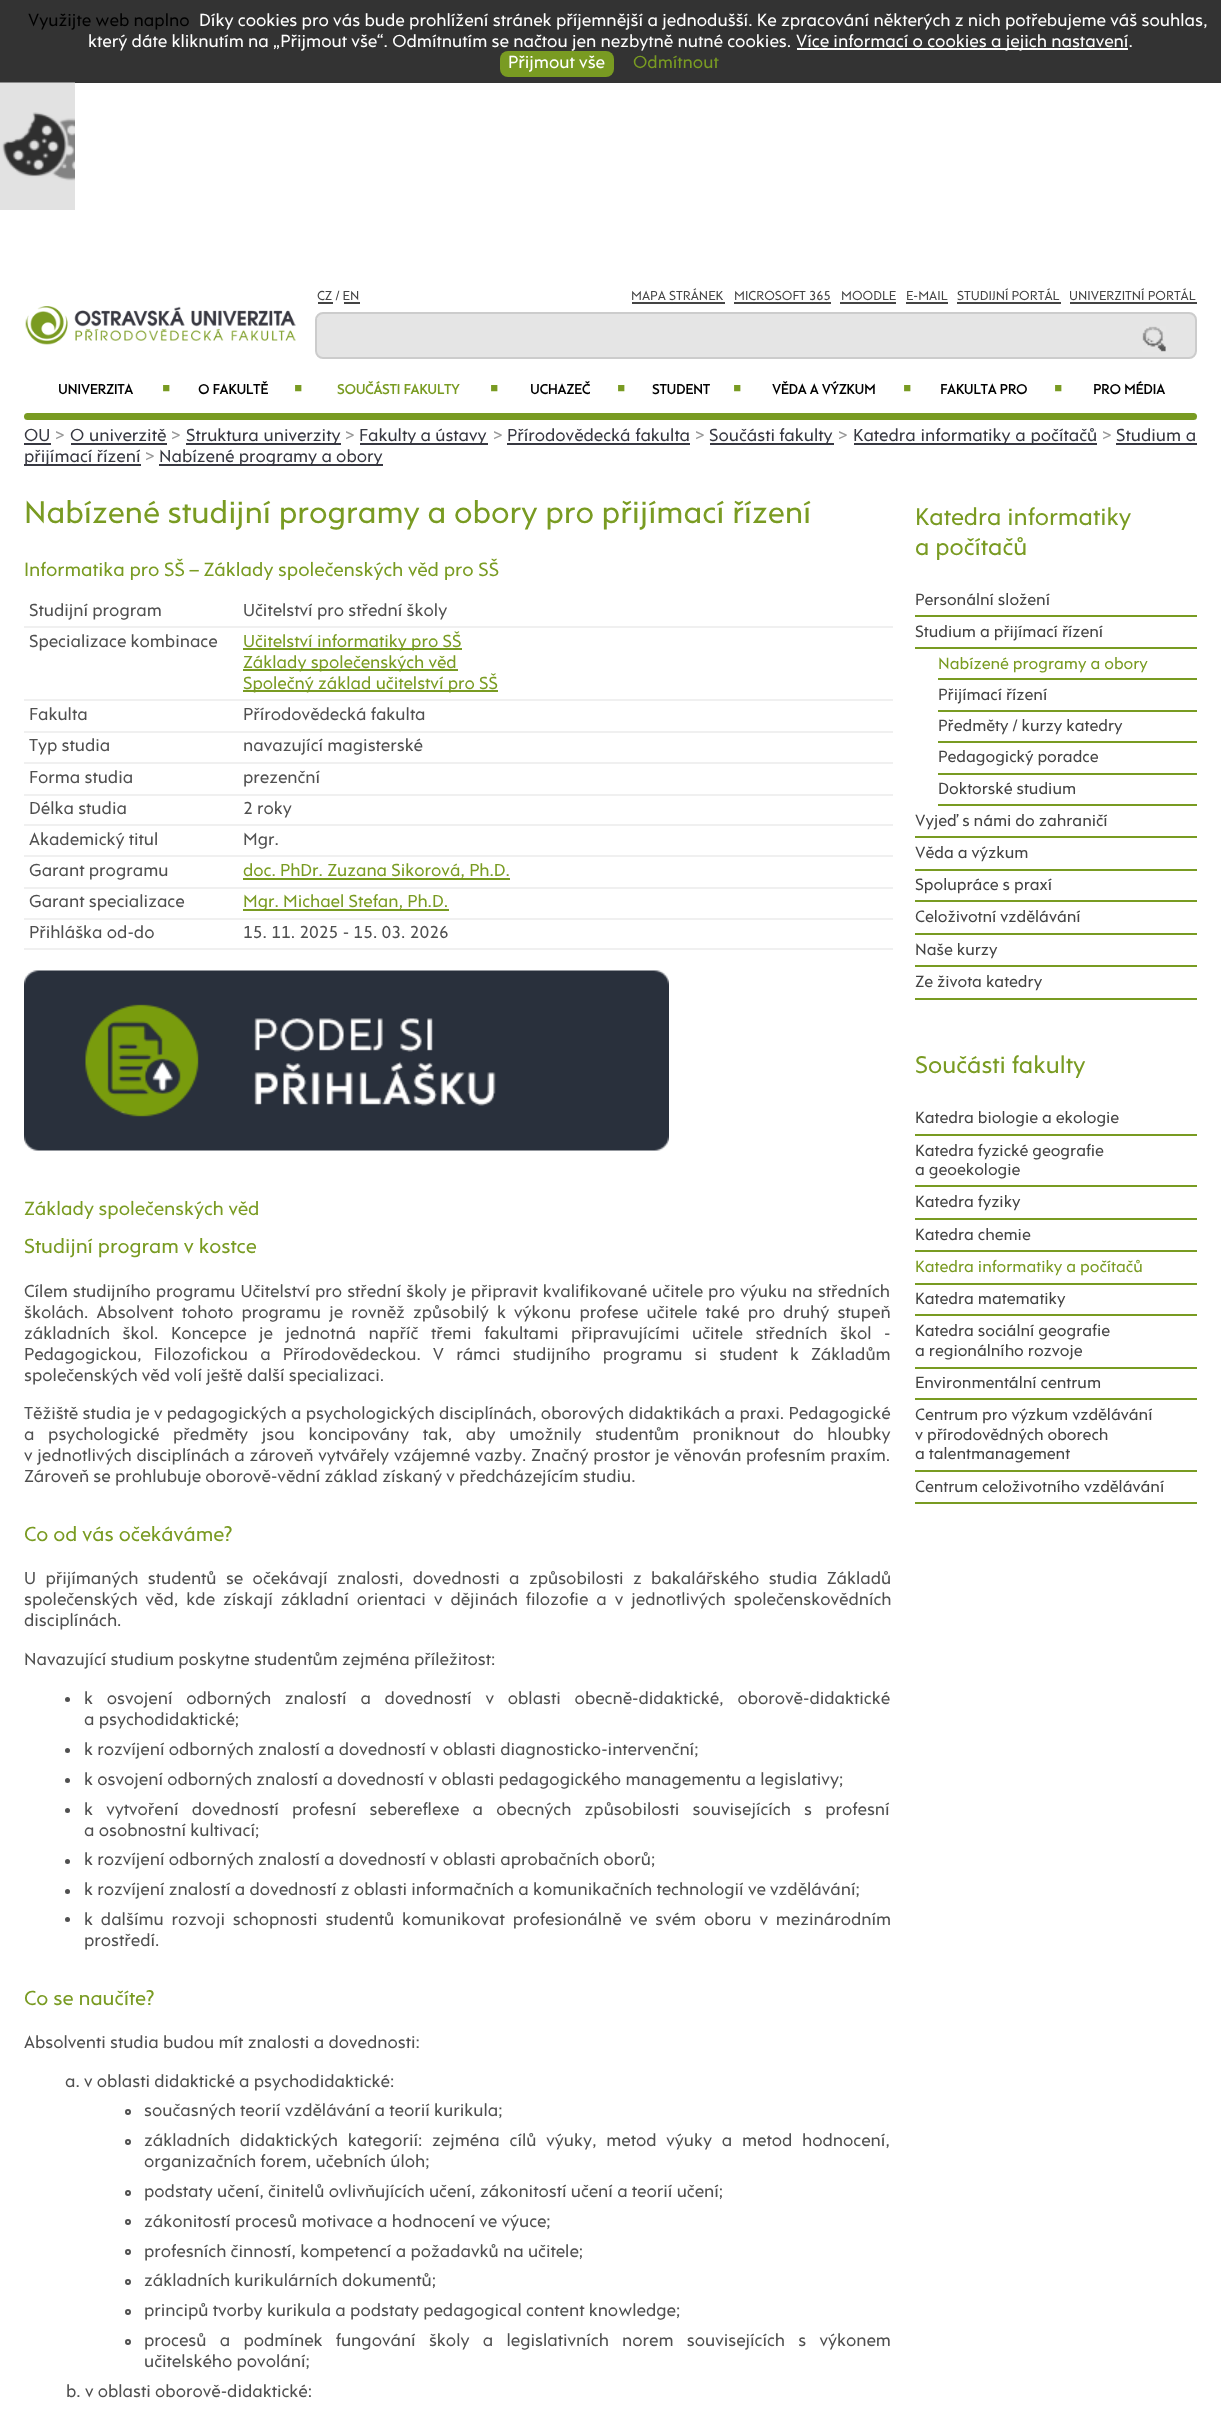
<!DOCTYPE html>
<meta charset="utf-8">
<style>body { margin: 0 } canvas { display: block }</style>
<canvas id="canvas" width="1221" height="2418"></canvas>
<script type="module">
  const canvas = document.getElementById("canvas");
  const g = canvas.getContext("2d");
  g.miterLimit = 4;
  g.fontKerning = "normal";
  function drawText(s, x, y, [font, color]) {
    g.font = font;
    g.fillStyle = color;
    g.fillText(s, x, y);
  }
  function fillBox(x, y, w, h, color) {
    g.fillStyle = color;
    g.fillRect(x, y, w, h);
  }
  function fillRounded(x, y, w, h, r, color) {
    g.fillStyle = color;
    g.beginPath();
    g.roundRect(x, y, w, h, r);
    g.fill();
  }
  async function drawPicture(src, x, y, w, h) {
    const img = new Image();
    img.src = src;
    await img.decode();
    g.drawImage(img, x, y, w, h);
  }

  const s1 = ["17.87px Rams", "#000000"];
  const s2 = ["17.87px Rams", "#FFFFFF"];
  const s3 = ["17.87px Rams", "#799B22"];
  const s4 = ["13.25px Rams", "#444444"];
  const s5 = ["bold 14px Rams", "#000000"];
  const s6 = ["bold 11px Rams", "#799B22"];
  const s7 = ["bold 14px Rams", "#799B22"];
  const s8 = ["17.8px Rams", "#373841"];
  const s9 = ["17.8px Rams", "#999999"];
  const s10 = ["32px Rams", "#799B22"];
  const s11 = ["19.6px Rams", "#799B22"];
  const s12 = ["17.8px Rams", "#505050"];
  const s13 = ["17.8px Rams", "#799B22"];
  const s14 = ["20.75px Rams", "#799B22"];
  const s15 = ["24.5px Rams", "#799B22"];
  const s16 = ["16.7px Rams", "#444444"];
  const s17 = ["16.7px Rams", "#799B22"];

  fillBox(0, 0, 1221, 2418, "#FFFFFF");
  fillBox(0, 0, 1221, 83, "#333333");
  drawText("Využijte web naplno", 28, 26, s1);
  drawText("Díky cookies pro vás bude prohlížení stránek příjemnější a jednodušší. Ke zpracování některých z nich potřebujeme váš souhlas,", 199, 26, s2);
  drawText("který dáte kliknutím na „Přijmout vše“. Odmítnutím se načtou jen nezbytně nutné cookies.", 88, 47, s2);
  fillBox(797, 48, 331, 2, "#FFFFFF");
  drawText("Více informací o cookies a jejich nastavení.", 796, 47, s2);
  fillRounded(500, 51, 114, 26, 8, "#799B22");
  drawText("Přijmout vše", 508, 68, s2);
  drawText("Odmítnout", 633, 68, s3);
  await drawPicture("pic1.png", 0, 82, 75, 128);
  drawText("CZ / EN", 317, 300, s4);
  fillBox(318, 302, 15, 2, "#444444");
  fillBox(344, 302, 16, 2, "#444444");
  drawText("MAPA STRÁNEK", 631, 300, s4);
  fillBox(632, 302, 93, 2, "#444444");
  drawText("MICROSOFT 365", 734, 300, s4);
  fillBox(734, 302, 97, 2, "#444444");
  drawText("MOODLE", 841, 300, s4);
  fillBox(840, 302, 56, 2, "#444444");
  drawText("E-MAIL", 906, 300, s4);
  fillBox(906, 302, 42, 2, "#444444");
  drawText("STUDIJNÍ PORTÁL", 957, 300, s4);
  fillBox(957, 302, 104, 2, "#444444");
  drawText("UNIVERZITNÍ PORTÁL", 1069, 300, s4);
  fillBox(1070, 302, 127, 2, "#444444");
  g.fillStyle = "#E5E5E5";
  g.beginPath();
  g.roundRect(316, 313, 880, 45, 7);
  g.fill();
  g.strokeStyle = "#CCCCCC";
  g.lineWidth = 2;
  g.stroke();
  fillBox(317, 318, 1, 1, "#E5E5E5");
  await drawPicture("pic2.png", 1142, 326, 24, 26);
  await drawPicture("pic3.png", 25, 306, 271, 39);
  drawText("UNIVERZITA", 58, 394, s5);
  drawText("■", 162, 392, s6);
  drawText("O FAKULTĚ", 198, 394, s5);
  drawText("■", 294, 392, s6);
  drawText("SOUČÁSTI FAKULTY", 337, 394, s7);
  drawText("■", 490, 392, s6);
  drawText("UCHAZEČ", 530, 394, s5);
  drawText("■", 617, 392, s6);
  drawText("STUDENT", 652, 394, s5);
  drawText("■", 733, 392, s6);
  drawText("VĚDA A VÝZKUM", 772, 394, s5);
  drawText("■", 903, 392, s6);
  drawText("FAKULTA PRO", 940, 394, s5);
  drawText("■", 1054, 392, s6);
  drawText("PRO MÉDIA", 1093, 394, s5);
  fillRounded(24, 413, 1173, 7, 3.5, "#799B22");
  drawText("OU", 24, 441, s8);
  fillBox(24, 443, 27, 2, "#373841");
  drawText(">", 55, 441, s9);
  g.wordSpacing = "0.5px";
  drawText("O univerzitě", 70, 441, s8);
  fillBox(71, 443, 96, 2, "#373841");
  g.wordSpacing = "0px";
  drawText(">", 171, 441, s9);
  fillBox(186, 443, 155, 2, "#373841");
  g.wordSpacing = "0.5px";
  drawText("Struktura univerzity", 186, 441, s8);
  g.wordSpacing = "0px";
  drawText(">", 345, 441, s9);
  fillBox(360, 443, 128, 2, "#373841");
  drawText("Fakulty a ústavy", 359, 441, s8);
  drawText(">", 493, 441, s9);
  g.wordSpacing = "0.5px";
  drawText("Přírodovědecká fakulta", 507, 441, s8);
  fillBox(507, 443, 183, 2, "#373841");
  g.wordSpacing = "0px";
  drawText(">", 695, 441, s9);
  fillBox(710, 443, 124, 2, "#373841");
  drawText("Součásti fakulty", 709, 441, s8);
  drawText(">", 838, 441, s9);
  fillBox(854, 443, 243, 2, "#373841");
  g.wordSpacing = "0.5px";
  drawText("Katedra informatiky a počítačů", 853, 441, s8);
  g.wordSpacing = "0px";
  drawText(">", 1102, 441, s9);
  g.wordSpacing = "0.5px";
  drawText("Studium a", 1116, 441, s8);
  fillBox(1116, 443, 81, 2, "#373841");
  fillBox(24, 464, 117, 2, "#373841");
  g.wordSpacing = "0px";
  drawText("přijímací řízení", 24, 462, s8);
  drawText(">", 145, 462, s9);
  fillBox(159, 464, 224, 2, "#373841");
  drawText("Nabízené programy a obory", 159, 462, s8);
  drawText("Nabízené studijní programy a obory pro přijímací řízení", 24, 523, s10);
  drawText("Informatika pro SŠ – Základy společenských věd pro SŠ", 24, 576, s11);
  fillBox(24, 626, 869, 2, "#F0F0F0");
  drawText("Studijní program", 29, 616, s12);
  drawText("Učitelství pro střední školy", 243, 616, s12);
  fillBox(24, 699, 869, 2, "#F0F0F0");
  drawText("Specializace kombinace", 29, 647, s12);
  fillBox(243, 648, 219, 2, "#799B22");
  drawText("Učitelství informatiky pro SŠ", 243, 647, s13);
  fillBox(243, 669, 215, 2, "#799B22");
  drawText("Základy společenských věd", 243, 668, s13);
  fillBox(243, 690, 255, 2, "#799B22");
  drawText("Společný základ učitelství pro SŠ", 243, 689, s13);
  fillBox(24, 731, 869, 2, "#F0F0F0");
  drawText("Fakulta", 29, 720, s12);
  drawText("Přírodovědecká fakulta", 243, 720, s12);
  fillBox(24, 762, 869, 2, "#F0F0F0");
  drawText("Typ studia", 29, 751, s12);
  drawText("navazující magisterské", 243, 751, s12);
  fillBox(24, 794, 869, 2, "#F0F0F0");
  drawText("Forma studia", 29, 783, s12);
  drawText("prezenční", 243, 783, s12);
  fillBox(24, 824, 869, 2, "#F0F0F0");
  drawText("Délka studia", 29, 814, s12);
  drawText("2 roky", 243, 814, s12);
  fillBox(24, 855, 869, 2, "#F0F0F0");
  drawText("Akademický titul", 29, 845, s12);
  drawText("Mgr.", 243, 845, s12);
  fillBox(24, 887, 869, 2, "#F0F0F0");
  drawText("Garant programu", 29, 876, s12);
  fillBox(243, 878, 267, 2, "#799B22");
  drawText("doc. PhDr. Zuzana Sikorová, Ph.D.", 243, 876, s13);
  fillBox(24, 918, 869, 2, "#F0F0F0");
  drawText("Garant specializace", 29, 907, s12);
  fillBox(243, 909, 206, 2, "#799B22");
  drawText("Mgr. Michael Stefan, Ph.D.", 243, 907, s13);
  fillBox(24, 948, 869, 2, "#F0F0F0");
  drawText("Přihláška od-do", 29, 938, s12);
  drawText("15. 11. 2025 - 15. 03. 2026", 243, 938, s12);
  await drawPicture("pic4.png", 24, 970, 645, 181);
  drawText("Základy společenských věd", 24, 1215, s11);
  drawText("Studijní program v kostce", 24, 1253, s14);
  g.wordSpacing = "0.75px";
  drawText("Cílem studijního programu Učitelství pro střední školy je připravit kvalifikované učitele pro výuku na středních", 24, 1297, s12);
  g.wordSpacing = "3.9px";
  drawText("školách. Absolvent tohoto programu je rovněž způsobilý k výkonu profese učitele také pro druhý stupeň", 24, 1318, s12);
  g.wordSpacing = "8.25px";
  drawText("základních škol. Koncepce je jednotná napříč třemi fakultami připravujícími učitele středních škol -", 24, 1339, s12);
  g.wordSpacing = "7.9px";
  drawText("Pedagogickou, Filozofickou a Přírodovědeckou. V rámci studijního programu si student k Základům", 24, 1360, s12);
  g.wordSpacing = "0px";
  drawText("společenských věd volí ještě další specializaci.", 24, 1381, s12);
  g.wordSpacing = "0.1px";
  drawText("Těžiště studia je v pedagogických a psychologických disciplínách, oborových didaktikách a praxi. Pedagogické", 24, 1419, s12);
  g.wordSpacing = "9.4px";
  drawText("a psychologické předměty jsou koncipovány tak, aby umožnily studentům proniknout do hloubky", 24, 1440, s12);
  g.wordSpacing = "0.5px";
  drawText("v jednotlivých disciplínách a zároveň vytvářely vzájemné vazby. Značný prostor je věnován profesním praxím.", 24, 1461, s12);
  g.wordSpacing = "0px";
  drawText("Zároveň se prohlubuje oborově-vědní základ získaný v předcházejícím studiu.", 24, 1482, s12);
  drawText("Co od vás očekáváme?", 24, 1541, s14);
  g.wordSpacing = "5.1px";
  drawText("U přijímaných studentů se očekávají znalosti, dovednosti a způsobilosti z bakalářského studia Základů", 24, 1584, s12);
  g.wordSpacing = "3.75px";
  drawText("společenských věd, kde získají základní orientaci v dějinách filozofie a v jednotlivých společenskovědních", 24, 1605, s12);
  g.wordSpacing = "0px";
  drawText("disciplínách.", 24, 1626, s12);
  drawText("Navazující studium poskytne studentům zejména příležitost:", 24, 1665, s12);
  g.beginPath();
  g.arc(67.5, 1699.5, 2.5, 0, Math.PI * 2);
  g.fill();
  g.wordSpacing = "9.5px";
  drawText("k osvojení odborných znalostí a dovedností v oblasti obecně-didaktické, oborově-didaktické", 84, 1704, s12);
  g.wordSpacing = "0px";
  drawText("a psychodidaktické;", 84, 1725, s12);
  g.beginPath();
  g.arc(67.5, 1750.5, 2.5, 0, Math.PI * 2);
  g.fill();
  drawText("k rozvíjení odborných znalostí a dovedností v oblasti diagnosticko-intervenční;", 84, 1755, s12);
  g.beginPath();
  g.arc(67.5, 1780.5, 2.5, 0, Math.PI * 2);
  g.fill();
  drawText("k osvojení odborných znalostí a dovedností v oblasti pedagogického managementu a legislativy;", 84, 1785, s12);
  g.beginPath();
  g.arc(67.5, 1810.5, 2.5, 0, Math.PI * 2);
  g.fill();
  g.wordSpacing = "9px";
  drawText("k vytvoření dovedností profesní sebereflexe a obecných způsobilosti souvisejících s profesní", 84, 1815, s12);
  g.wordSpacing = "0px";
  drawText("a osobnostní kultivací;", 84, 1836, s12);
  g.beginPath();
  g.arc(67.5, 1861.5, 2.5, 0, Math.PI * 2);
  g.fill();
  drawText("k rozvíjení odborných znalostí a dovedností v oblasti aprobačních oborů;", 84, 1865, s12);
  g.beginPath();
  g.arc(67.5, 1891.5, 2.5, 0, Math.PI * 2);
  g.fill();
  drawText("k rozvíjení znalostí a dovedností z oblasti informačních a komunikačních technologií ve vzdělávání;", 84, 1895, s12);
  g.beginPath();
  g.arc(67.5, 1919.5, 2.5, 0, Math.PI * 2);
  g.fill();
  g.wordSpacing = "3.6px";
  drawText("k dalšímu rozvoji schopnosti studentů komunikovat profesionálně ve svém oboru v mezinárodním", 84, 1925, s12);
  g.wordSpacing = "0px";
  drawText("prostředí.", 84, 1946, s12);
  drawText("Co se naučíte?", 24, 2005, s14);
  drawText("Absolventi studia budou mít znalosti a dovednosti:", 24, 2048, s12);
  drawText("a. v oblasti didaktické a psychodidaktické:", 65, 2087, s12);
  g.beginPath();
  g.arc(128, 2112, 2, 0, Math.PI * 2);
  g.strokeStyle = "#505050";
  g.stroke();
  drawText("současných teorií vzdělávání a teorií kurikula;", 144, 2116, s12);
  g.beginPath();
  g.arc(128, 2142, 2, 0, Math.PI * 2);
  g.stroke();
  g.wordSpacing = "5.5px";
  drawText("základních didaktických kategorií: zejména cílů výuky, metod výuky a metod hodnocení,", 144, 2146, s12);
  g.wordSpacing = "0px";
  drawText("organizačních forem, učebních úloh;", 144, 2167, s12);
  g.beginPath();
  g.arc(128, 2193, 2, 0, Math.PI * 2);
  g.stroke();
  drawText("podstaty učení, činitelů ovlivňujících učení, zákonitostí učení a teorií učení;", 144, 2197, s12);
  g.beginPath();
  g.arc(128, 2222, 2, 0, Math.PI * 2);
  g.stroke();
  drawText("zákonitostí procesů motivace a hodnocení ve výuce;", 144, 2227, s12);
  g.beginPath();
  g.arc(128, 2252, 2, 0, Math.PI * 2);
  g.stroke();
  drawText("profesních činností, kompetencí a požadavků na učitele;", 144, 2257, s12);
  g.beginPath();
  g.arc(128, 2282, 2, 0, Math.PI * 2);
  g.stroke();
  drawText("základních kurikulárních dokumentů;", 144, 2286, s12);
  g.beginPath();
  g.arc(128, 2312, 2, 0, Math.PI * 2);
  g.stroke();
  drawText("principů tvorby kurikula a podstaty pedagogical content knowledge;", 144, 2316, s12);
  g.beginPath();
  g.arc(128, 2342, 2, 0, Math.PI * 2);
  g.stroke();
  g.wordSpacing = "9px";
  drawText("procesů a podmínek fungování školy a legislativních norem souvisejících s výkonem", 144, 2346, s12);
  g.wordSpacing = "0px";
  drawText("učitelského povolání;", 144, 2367, s12);
  drawText("b. v oblasti oborově-didaktické:", 66, 2397, s12);
  drawText("Katedra informatiky", 915, 525, s15);
  drawText("a počítačů", 915, 555, s15);
  fillBox(915, 615, 282, 2, "#799B22");
  drawText("Personální složení", 915, 605, s16);
  fillBox(915, 647, 282, 2, "#799B22");
  drawText("Studium a přijímací řízení", 915, 637, s16);
  fillBox(938, 678, 259, 2, "#799B22");
  drawText("Nabízené programy a obory", 938, 669, s17);
  fillBox(938, 710, 259, 2, "#799B22");
  drawText("Přijímací řízení", 938, 700, s16);
  fillBox(938, 741, 259, 2, "#799B22");
  drawText("Předměty / kurzy katedry", 938, 731, s16);
  fillBox(938, 773, 259, 2, "#799B22");
  drawText("Pedagogický poradce", 938, 762, s16);
  fillBox(938, 804, 259, 2, "#799B22");
  drawText("Doktorské studium", 938, 794, s16);
  fillBox(915, 836, 282, 2, "#799B22");
  drawText("Vyjeď s námi do zahraničí", 915, 826, s16);
  fillBox(915, 869, 282, 2, "#799B22");
  drawText("Věda a výzkum", 915, 858, s16);
  fillBox(915, 900, 282, 2, "#799B22");
  drawText("Spolupráce s praxí", 915, 890, s16);
  fillBox(915, 933, 282, 2, "#799B22");
  drawText("Celoživotní vzdělávání", 915, 922, s16);
  fillBox(915, 965, 282, 2, "#799B22");
  drawText("Naše kurzy", 915, 955, s16);
  fillBox(915, 998, 282, 2, "#799B22");
  drawText("Ze života katedry", 915, 987, s16);
  drawText("Součásti fakulty", 915, 1073, s15);
  fillBox(915, 1134, 282, 2, "#799B22");
  drawText("Katedra biologie a ekologie", 915, 1123, s16);
  fillBox(915, 1185, 282, 2, "#799B22");
  drawText("Katedra fyzické geografie", 915, 1156, s16);
  drawText("a geoekologie", 915, 1175, s16);
  fillBox(915, 1218, 282, 2, "#799B22");
  drawText("Katedra fyziky", 915, 1207, s16);
  fillBox(915, 1250, 282, 2, "#799B22");
  drawText("Katedra chemie", 915, 1240, s16);
  fillBox(915, 1283, 282, 2, "#799B22");
  drawText("Katedra informatiky a počítačů", 915, 1272, s17);
  fillBox(915, 1314, 282, 2, "#799B22");
  drawText("Katedra matematiky", 915, 1304, s16);
  fillBox(915, 1367, 282, 2, "#799B22");
  drawText("Katedra sociální geografie", 915, 1336, s16);
  drawText("a regionálního rozvoje", 915, 1356, s16);
  fillBox(915, 1398, 282, 2, "#799B22");
  drawText("Environmentální centrum", 915, 1388, s16);
  fillBox(915, 1470, 282, 2, "#799B22");
  drawText("Centrum pro výzkum vzdělávání", 915, 1420, s16);
  drawText("v přírodovědných oborech", 915, 1440, s16);
  drawText("a talentmanagement", 915, 1459, s16);
  fillBox(915, 1502, 282, 2, "#799B22");
  drawText("Centrum celoživotního vzdělávání", 915, 1492, s16);
</script>
